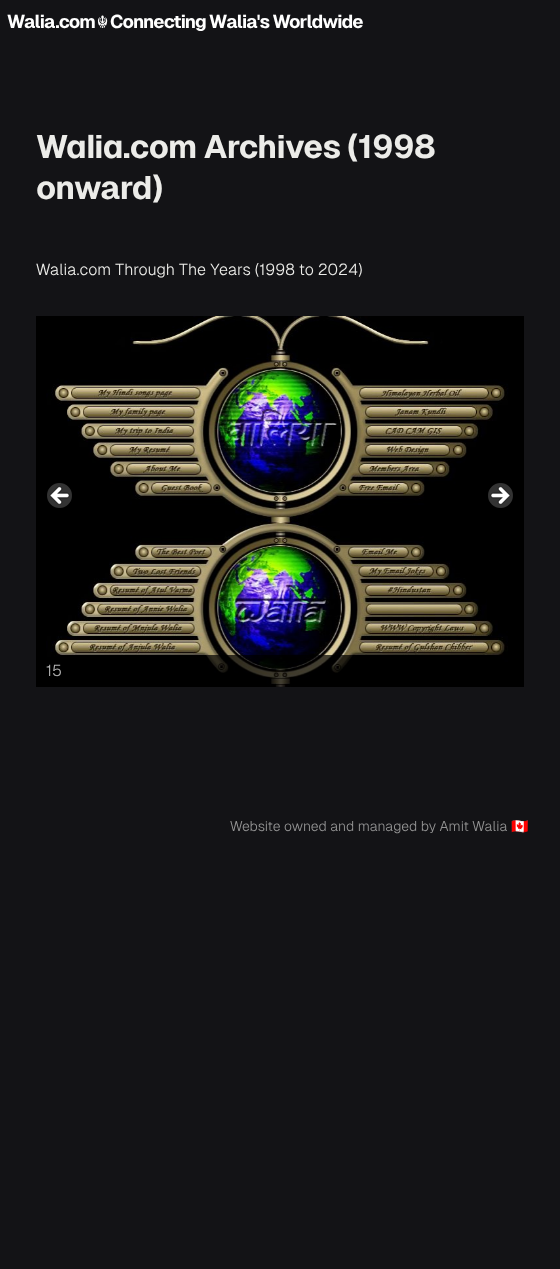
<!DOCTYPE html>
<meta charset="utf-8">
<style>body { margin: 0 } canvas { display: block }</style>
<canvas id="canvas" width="560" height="1269"></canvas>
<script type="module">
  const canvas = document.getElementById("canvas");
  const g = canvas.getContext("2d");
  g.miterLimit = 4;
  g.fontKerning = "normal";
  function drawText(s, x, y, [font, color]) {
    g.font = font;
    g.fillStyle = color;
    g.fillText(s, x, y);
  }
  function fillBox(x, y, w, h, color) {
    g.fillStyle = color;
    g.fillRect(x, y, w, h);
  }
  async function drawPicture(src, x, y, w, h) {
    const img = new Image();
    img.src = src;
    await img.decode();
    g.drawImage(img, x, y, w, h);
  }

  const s1 = ["bold 18.5px Geist", "#FFFFFF"];
  const s2 = ["bold 18.5px DejaVu Sans Mono", "#FFFFFF"];
  const s3 = ["bold 32.6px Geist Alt", "#ECECE9"];
  const s4 = ["bold 32.6px Geist", "#ECECE9"];
  const s5 = ["300 16px Geist", "#ECECE9"];
  const s6 = ["300 16px Geist", "#B3B3B3"];
  const s7 = ["300 14px Geist", "#959595"];
  const s8 = ["14px Noto Color Emoji", "#959595"];

  fillBox(0, 0, 560, 1269, "#131316");
  g.letterSpacing = "-0.9px";
  drawText("Walia.com", 7, 28, s1);
  drawText("☬", 97, 28, s2);
  drawText("Connecting Walia's Worldwide", 110, 28, s1);
  g.letterSpacing = "-0.65px";
  drawText("Walia.com Archives (1998", 36, 158, s3);
  drawText("onward)", 36, 199, s4);
  g.letterSpacing = "0px";
  drawText("Walia.com Through The Years (1998 to 2024)", 36, 275, s5);
  await drawPicture("pic3.png", 36, 316, 488, 371);
  await drawPicture("pic1.png", 47, 483, 25, 25);
  await drawPicture("pic2.png", 488, 483, 25, 25);
  fillBox(57, 655, 445, 32, "rgba(0, 0, 0, 0.7)");
  drawText("15", 46, 676, s6);
  drawText("Website owned and managed by Amit Walia", 230, 831, s7);
  drawText("🇨🇦", 511, 831, s8);
</script>
